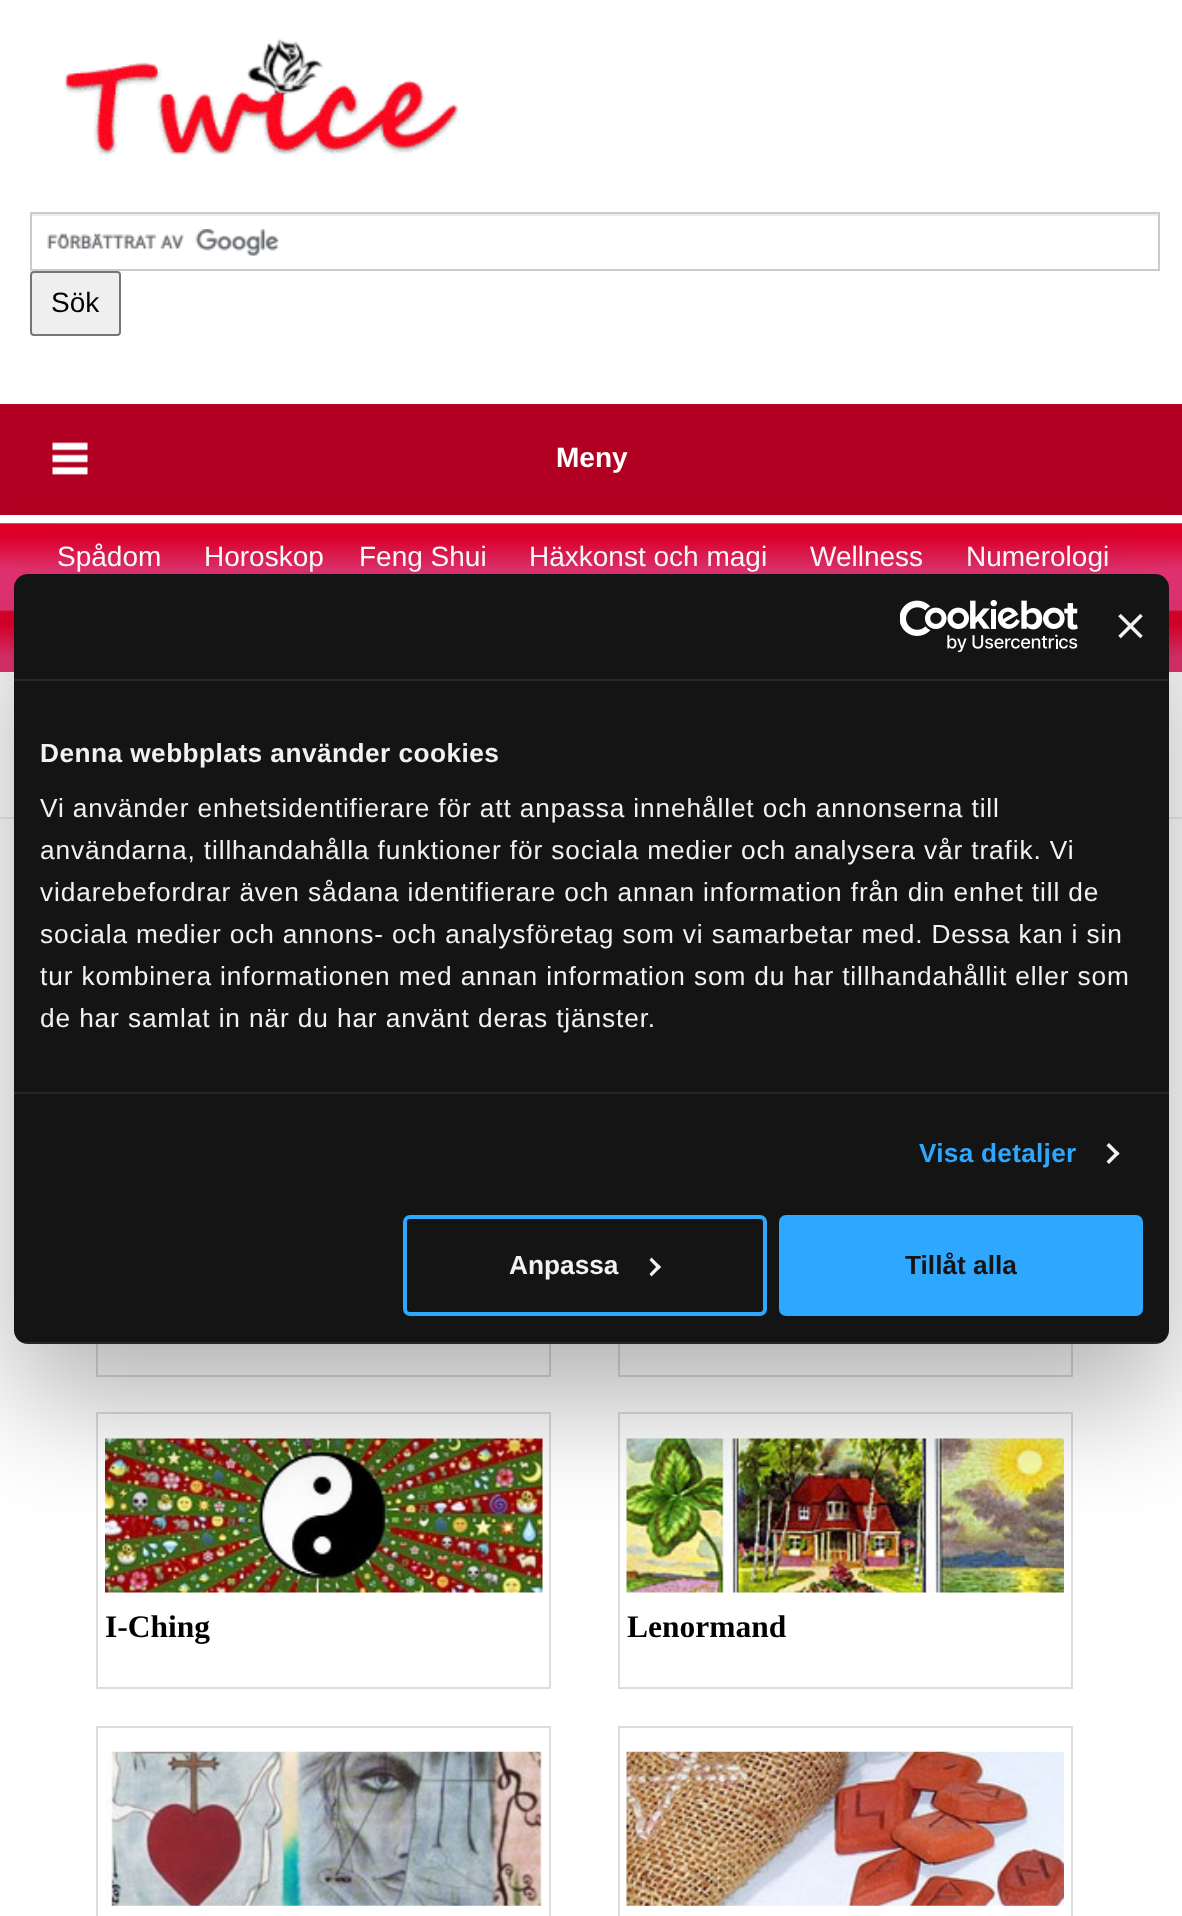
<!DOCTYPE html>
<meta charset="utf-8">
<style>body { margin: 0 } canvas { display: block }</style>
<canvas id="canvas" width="1182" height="1916"></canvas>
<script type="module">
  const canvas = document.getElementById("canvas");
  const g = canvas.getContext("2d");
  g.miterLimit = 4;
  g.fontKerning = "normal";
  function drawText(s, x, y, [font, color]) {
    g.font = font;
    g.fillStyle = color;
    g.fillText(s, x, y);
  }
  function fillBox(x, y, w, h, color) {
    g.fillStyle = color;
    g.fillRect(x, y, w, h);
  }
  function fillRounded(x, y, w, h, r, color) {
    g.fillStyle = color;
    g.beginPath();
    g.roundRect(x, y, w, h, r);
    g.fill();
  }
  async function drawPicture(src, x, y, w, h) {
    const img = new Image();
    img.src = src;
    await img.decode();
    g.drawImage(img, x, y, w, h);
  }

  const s1 = ["28px Liberation Sans", "#000000"];
  const s2 = ["bold 28px Liberation Sans", "#FFFFFF"];
  const s3 = ["28px Liberation Sans", "#FFFFFF"];
  const s4 = ["bold 31.5px Liberation Serif", "#000000"];
  const s5 = ["bold 26.25px Liberation Sans", "#F2F2F2"];
  const s6 = ["26.25px Liberation Sans", "#F2F2F2"];
  const s7 = ["bold 26.25px Liberation Sans", "#2EA7FF"];
  const s8 = ["bold 26.25px Liberation Sans", "#141414"];

  fillBox(0, 0, 1182, 1916, "#FFFFFF");
  await drawPicture("pic1.png", 63, 38, 396, 118);
  await drawPicture("pic2.png", 47, 229, 232, 27);
  fillBox(32, 214, 1127, 2, "#ECECEC");
  g.strokeStyle = "#CCCCCC";
  g.lineWidth = 2;
  g.strokeRect(31, 213, 1128, 57);
  g.fillStyle = "#EFEFEF";
  g.beginPath();
  g.roundRect(31, 272, 89, 63, 3);
  g.fill();
  g.strokeStyle = "#767676";
  g.stroke();
  drawText("Sök", 51, 312, s1);
  fillBox(0, 404, 1182, 111, "#B10021");
  await drawPicture("pic3.png", 52, 442, 36, 33);
  drawText("Meny", 556, 467, s2);
  await drawPicture("pic4.png", 0, 523, 1182, 149);
  drawText("Spådom", 57, 566, s3);
  drawText("Horoskop", 204, 566, s3);
  drawText("Feng Shui", 359, 566, s3);
  drawText("Häxkonst och magi", 529, 566, s3);
  drawText("Wellness", 810, 566, s3);
  drawText("Numerologi", 966, 566, s3);
  fillBox(0, 817, 1182, 2, "#EEEEEE");
  g.strokeStyle = "#DDDDDD";
  g.strokeRect(97, 1104, 453, 272);
  g.strokeRect(619, 1104, 453, 272);
  g.strokeRect(97, 1413, 453, 275);
  await drawPicture("pic5.png", 105, 1438, 438, 155);
  drawText("I-Ching", 105, 1637, s4);
  g.strokeRect(619, 1413, 453, 275);
  await drawPicture("pic6.png", 626, 1438, 438, 155);
  drawText("Lenormand", 627, 1637, s4);
  g.strokeRect(97, 1727, 453, 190);
  await drawPicture("pic7.png", 105, 1751, 437, 155);
  g.strokeRect(619, 1727, 453, 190);
  await drawPicture("pic8.png", 626, 1751, 438, 155);
  g.fillStyle = "rgba(0, 0, 0, 0.3)";
  g.filter = "blur(59.5px)";
  g.beginPath();
  g.roundRect(14, 630, 1155, 770, 14);
  g.fill();
  g.filter = "none";
  fillRounded(14, 574, 1155, 770, 14, "#141414");
  fillBox(14, 679, 1155, 2, "#272727");
  await drawPicture("pic9.png", 900, 600, 178, 53);
  await drawPicture("pic10.png", 1118, 614, 25, 25);
  fillBox(14, 1092, 1155, 2, "#272727");
  g.letterSpacing = "0.45px";
  drawText("Denna webbplats använder cookies", 40, 762, s5);
  g.letterSpacing = "0.88px";
  drawText("Vi använder enhetsidentifierare för att anpassa innehållet och annonserna till", 40, 817, s6);
  drawText("användarna, tillhandahålla funktioner för sociala medier och analysera vår trafik. Vi", 40, 859, s6);
  drawText("vidarebefordrar även sådana identifierare och annan information från din enhet till de", 40, 901, s6);
  drawText("sociala medier och annons- och analysföretag som vi samarbetar med. Dessa kan i sin", 40, 943, s6);
  drawText("tur kombinera informationen med annan information som du har tillhandahållit eller som", 40, 985, s6);
  drawText("de har samlat in när du har använt deras tjänster.", 40, 1027, s6);
  g.letterSpacing = "0.25px";
  drawText("Visa detaljer", 919, 1162, s7);
  g.fillStyle = "#F2F2F2";
  g.beginPath();
  g.moveTo(1109, 1143);
  g.lineTo(1119.5, 1153.5);
  g.lineTo(1117, 1156);
  g.lineTo(1106.5, 1145.5);
  g.closePath();
  g.fill();
  g.beginPath();
  g.moveTo(1117, 1151);
  g.lineTo(1119.5, 1153.5);
  g.lineTo(1109, 1164);
  g.lineTo(1106.5, 1161.5);
  g.closePath();
  g.fill();
  g.save();
  g.beginPath();
  g.roundRect(14, 574, 1155, 770, 14);
  g.clip();
  fillBox(14, 1342, 1155, 2, "rgba(255, 255, 255, 0.08)");
  g.restore();
  g.beginPath();
  g.roundRect(405, 1217, 360, 97, 5);
  g.strokeStyle = "#2EA7FF";
  g.lineWidth = 4;
  g.stroke();
  g.letterSpacing = "0px";
  drawText("Anpassa", 509, 1274, s5);
  g.beginPath();
  g.moveTo(651.5, 1257.5);
  g.lineTo(661, 1267);
  g.lineTo(658.5, 1269.5);
  g.lineTo(649.5, 1260);
  g.closePath();
  g.fill();
  g.beginPath();
  g.moveTo(658.5, 1264.5);
  g.lineTo(661, 1267);
  g.lineTo(651.5, 1276.5);
  g.lineTo(649.5, 1274);
  g.closePath();
  g.fill();
  g.fillStyle = "#2EA7FF";
  g.beginPath();
  g.roundRect(781, 1217, 360, 97, 5);
  g.fill();
  g.stroke();
  drawText("Tillåt alla", 905, 1274, s8);
</script>
